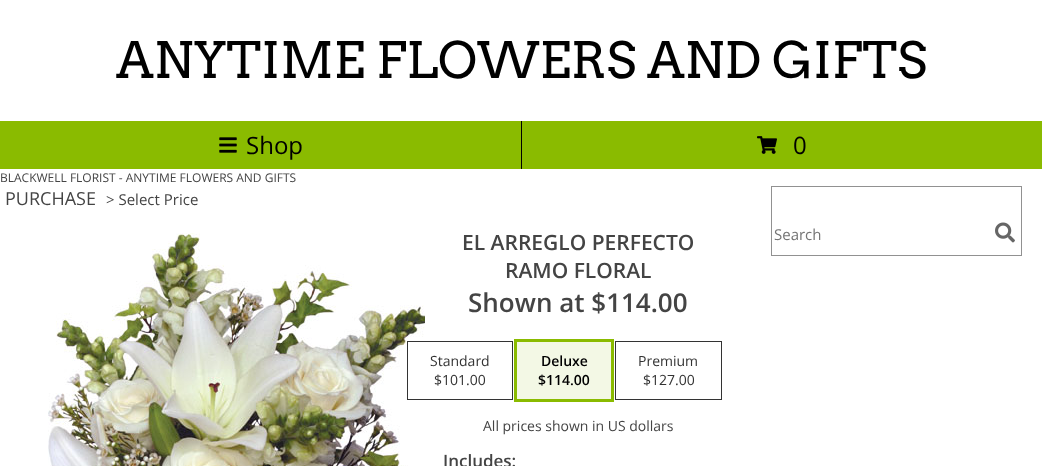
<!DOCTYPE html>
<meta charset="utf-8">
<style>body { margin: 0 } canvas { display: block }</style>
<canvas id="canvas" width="1042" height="466"></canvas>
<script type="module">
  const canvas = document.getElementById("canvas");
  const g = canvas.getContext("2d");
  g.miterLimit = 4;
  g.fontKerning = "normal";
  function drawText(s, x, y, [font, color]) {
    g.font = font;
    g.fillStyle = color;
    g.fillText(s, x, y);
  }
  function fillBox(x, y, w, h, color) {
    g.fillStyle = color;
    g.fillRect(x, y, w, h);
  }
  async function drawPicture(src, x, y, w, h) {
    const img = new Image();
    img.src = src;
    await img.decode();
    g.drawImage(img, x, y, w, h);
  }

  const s1 = ["50px Arvo", "#000000"];
  const s2 = ["24px Open Sans", "#000000"];
  const s3 = ["12px Open Sans", "#444444"];
  const s4 = ["18px Open Sans", "#444444"];
  const s5 = ["15px Open Sans", "#444444"];
  const s6 = ["15px Open Sans", "#757575"];
  const s7 = ["600 21px Open Sans", "#444444"];
  const s8 = ["600 26px Open Sans", "#444444"];
  const s9 = ["14px Open Sans", "#333333"];
  const s10 = ["600 14px Open Sans", "#000000"];
  const s11 = ["14px Open Sans", "#444444"];
  const s12 = ["600 17px Open Sans", "#444444"];

  fillBox(0, 0, 1042, 466, "#FFFFFF");
  drawText("ANYTIME FLOWERS AND GIFTS", 116, 78, s1);
  fillBox(521, 121, 1, 48, "#000000");
  fillBox(0, 121, 521, 48, "#8ABB00");
  await drawPicture("pic1.png", 219, 137, 18, 16);
  drawText("Shop", 246, 154, s2);
  fillBox(522, 121, 520, 48, "#8ABB00");
  await drawPicture("pic2.png", 757, 136, 20, 18);
  drawText("0", 793, 154, s2);
  drawText("BLACKWELL FLORIST - ANYTIME FLOWERS AND GIFTS", 0, 182, s3);
  drawText("PURCHASE", 5, 205, s4);
  drawText("> Select Price", 106, 205, s5);
  g.strokeStyle = "#919191";
  g.strokeRect(771.5, 186.5, 250, 69);
  drawText("Search", 774, 240, s6);
  await drawPicture("pic3.png", 995, 222, 20, 21);
  await drawPicture("pic4.png", 48, 233, 377, 233);
  drawText("EL ARREGLO PERFECTO", 462, 250, s7);
  drawText("RAMO FLORAL", 505, 278, s7);
  drawText("Shown at $114.00", 468, 312, s8);
  g.strokeStyle = "#333333";
  g.strokeRect(407.5, 341.5, 105, 58);
  drawText("Standard", 430, 366, s9);
  drawText("$101.00", 434, 385, s9);
  g.strokeStyle = "#8ABB00";
  g.lineWidth = 3;
  g.strokeRect(515.5, 340.5, 97, 60);
  fillBox(517, 342, 94, 57, "#F3F8E5");
  drawText("Deluxe", 541, 366, s10);
  drawText("$114.00", 538, 385, s10);
  g.strokeStyle = "#333333";
  g.lineWidth = 1;
  g.strokeRect(615.5, 341.5, 106, 58);
  drawText("Premium", 638, 366, s9);
  drawText("$127.00", 643, 385, s9);
  drawText("All prices shown in US dollars", 483, 431, s11);
  drawText("Includes:", 443, 467, s12);
</script>
